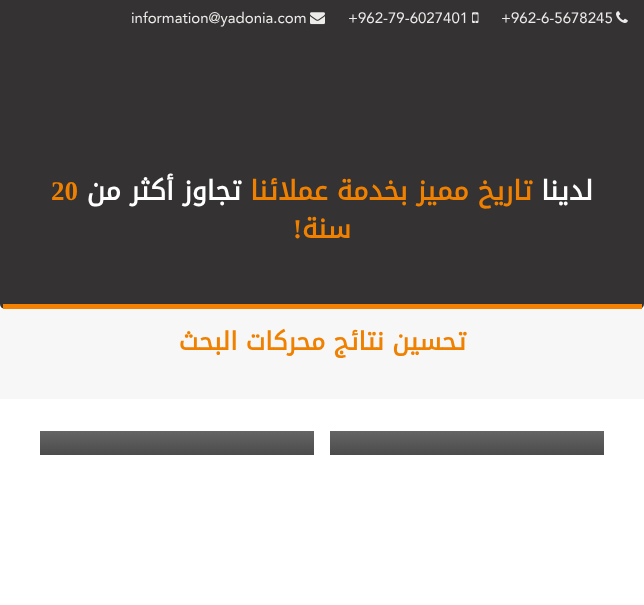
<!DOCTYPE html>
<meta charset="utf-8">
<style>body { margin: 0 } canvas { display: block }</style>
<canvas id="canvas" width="644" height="605"></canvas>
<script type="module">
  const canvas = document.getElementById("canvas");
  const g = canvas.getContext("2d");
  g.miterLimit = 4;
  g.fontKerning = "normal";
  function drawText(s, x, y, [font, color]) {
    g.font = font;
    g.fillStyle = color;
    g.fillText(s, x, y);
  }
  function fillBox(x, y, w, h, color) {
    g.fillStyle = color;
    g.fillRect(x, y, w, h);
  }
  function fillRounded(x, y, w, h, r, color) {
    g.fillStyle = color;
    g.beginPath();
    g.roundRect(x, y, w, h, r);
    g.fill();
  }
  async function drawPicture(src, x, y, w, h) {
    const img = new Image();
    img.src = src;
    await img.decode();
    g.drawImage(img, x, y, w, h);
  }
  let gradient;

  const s1 = ["15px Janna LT", "#EEECEA"];
  const s2 = ["bold 27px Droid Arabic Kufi", "#FFFFFF"];
  const s3 = ["bold 27px Droid Arabic Kufi", "#EF8000"];
  const s4 = ["bold 27px Liberation Serif", "#EF8000"];
  const s5 = ["bold 25px Droid Arabic Kufi", "#EF8000"];

  fillBox(0, 0, 644, 605, "#FFFFFF");
  fillRounded(0, 0, 644, 309, 5, "#343233");
  await drawPicture("pic1.png", 616, 11, 12, 12);
  drawText("+962-6-5678245", 501, 23, s1);
  await drawPicture("pic2.png", 472, 12, 7, 11);
  drawText("+962-79-6027401", 348, 23, s1);
  await drawPicture("pic3.png", 310, 12, 15, 13);
  drawText("information@yadonia.com", 131, 23, s1);
  fillBox(3, 304, 639, 5, "#F48200");
  fillBox(0, 0, 644, 5, "#343233");
  g.direction = "rtl";
  drawText("لدينا", 593, 200, s2);
  drawText("تاريخ مميز بخدمة عملائنا", 532, 200, s3);
  drawText("تجاوز أكثر من", 241, 200, s2);
  g.direction = "ltr";
  drawText("20", 51, 200, s4);
  g.direction = "rtl";
  drawText("سنة", 351, 238, s3);
  drawText("!", 302, 238, s4);
  fillBox(0, 309, 644, 90, "#F7F7F7");
  drawText("تحسين نتائج محركات البحث", 466, 350, s5);
  gradient = g.createLinearGradient(467, 290, 467, 455);
  gradient.addColorStop(0, "#FFFFFF");
  gradient.addColorStop(1, "#4B4B4B");
  g.fillStyle = gradient;
  g.fillRect(330, 431, 274, 24);
  gradient = g.createLinearGradient(177, 290, 177, 455);
  gradient.addColorStop(0, "#FFFFFF");
  gradient.addColorStop(1, "#4B4B4B");
  g.fillStyle = gradient;
  g.fillRect(40, 431, 274, 24);
</script>
